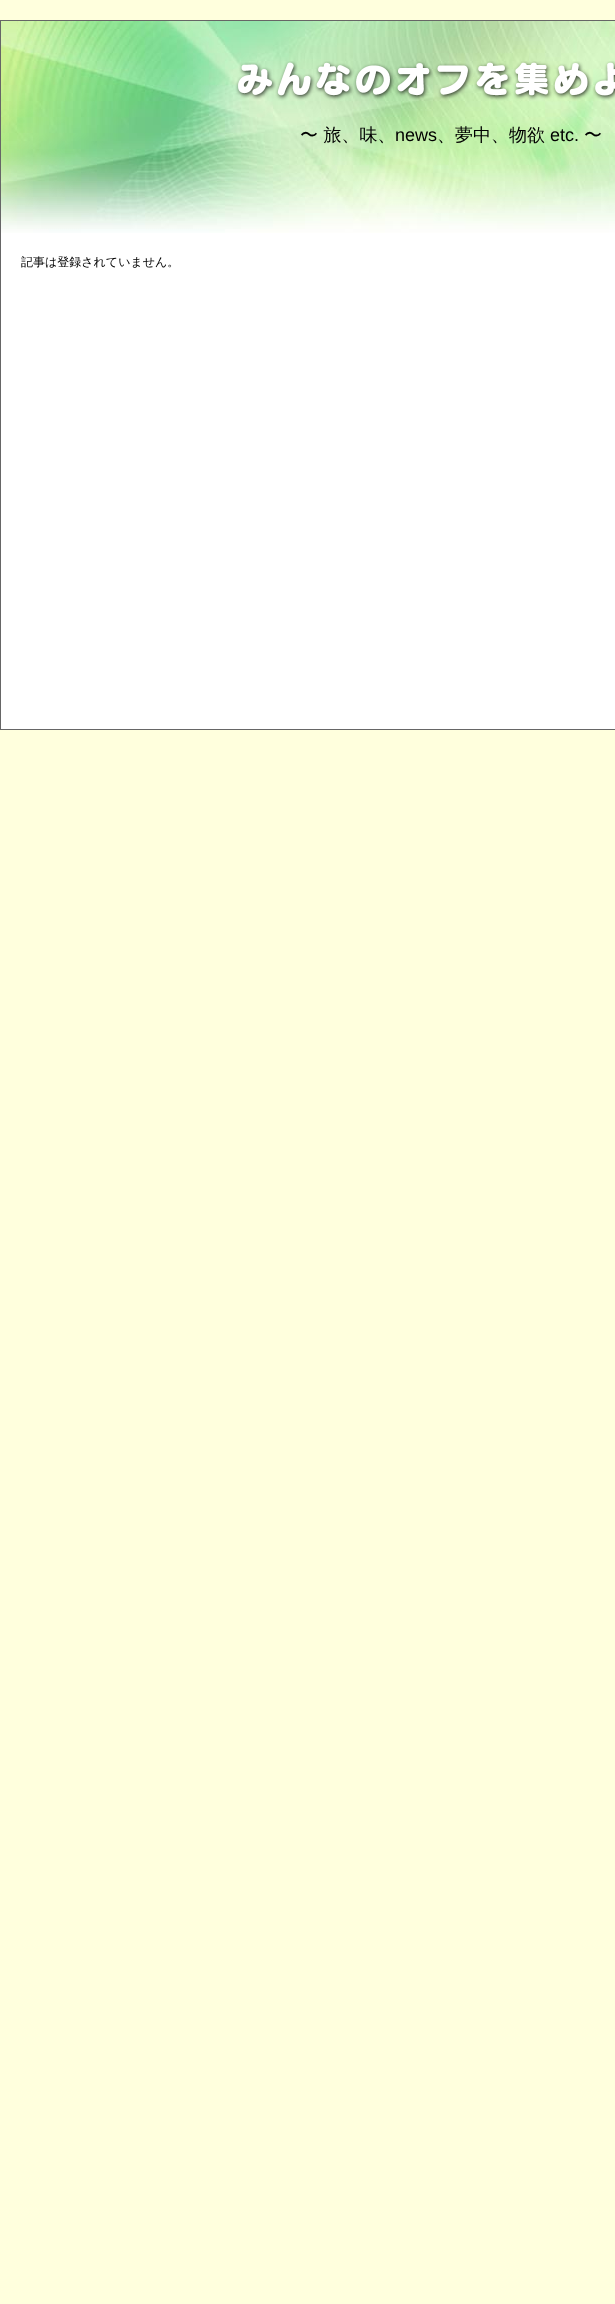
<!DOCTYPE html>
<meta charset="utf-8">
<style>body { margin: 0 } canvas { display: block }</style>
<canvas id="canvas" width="615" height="2304"></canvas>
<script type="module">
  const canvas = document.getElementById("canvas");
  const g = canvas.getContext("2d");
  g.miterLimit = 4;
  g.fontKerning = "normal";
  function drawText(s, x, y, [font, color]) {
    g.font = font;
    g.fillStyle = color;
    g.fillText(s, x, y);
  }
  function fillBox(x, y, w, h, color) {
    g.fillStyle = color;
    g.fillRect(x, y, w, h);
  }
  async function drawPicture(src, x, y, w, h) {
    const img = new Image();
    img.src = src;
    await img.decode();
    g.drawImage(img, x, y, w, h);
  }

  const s1 = ["500 18px WenQuanYi Zen Hei", "#000000"];
  const s2 = ["18px Liberation Sans", "#000000"];
  const s3 = ["500 12px WenQuanYi Zen Hei", "#000000"];

  fillBox(0, 0, 615, 2304, "#FFFFDD");
  fillBox(1, 233, 614, 496, "#FFFFFF");
  await drawPicture("pic1.png", 1, 21, 614, 212);
  g.strokeStyle = "#666666";
  g.strokeRect(0.5, 20.5, 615, 709);
  await drawPicture("pic2.png", 235, 61, 380, 40);
  drawText("〜 旅、味、", 300, 141, s1);
  drawText("news", 395, 141, s2);
  drawText("、夢中、物欲", 437, 141, s1);
  drawText("etc.", 550, 141, s2);
  drawText("〜", 584, 141, s1);
  drawText("記事は登録されていません。", 21, 266, s3);
</script>
